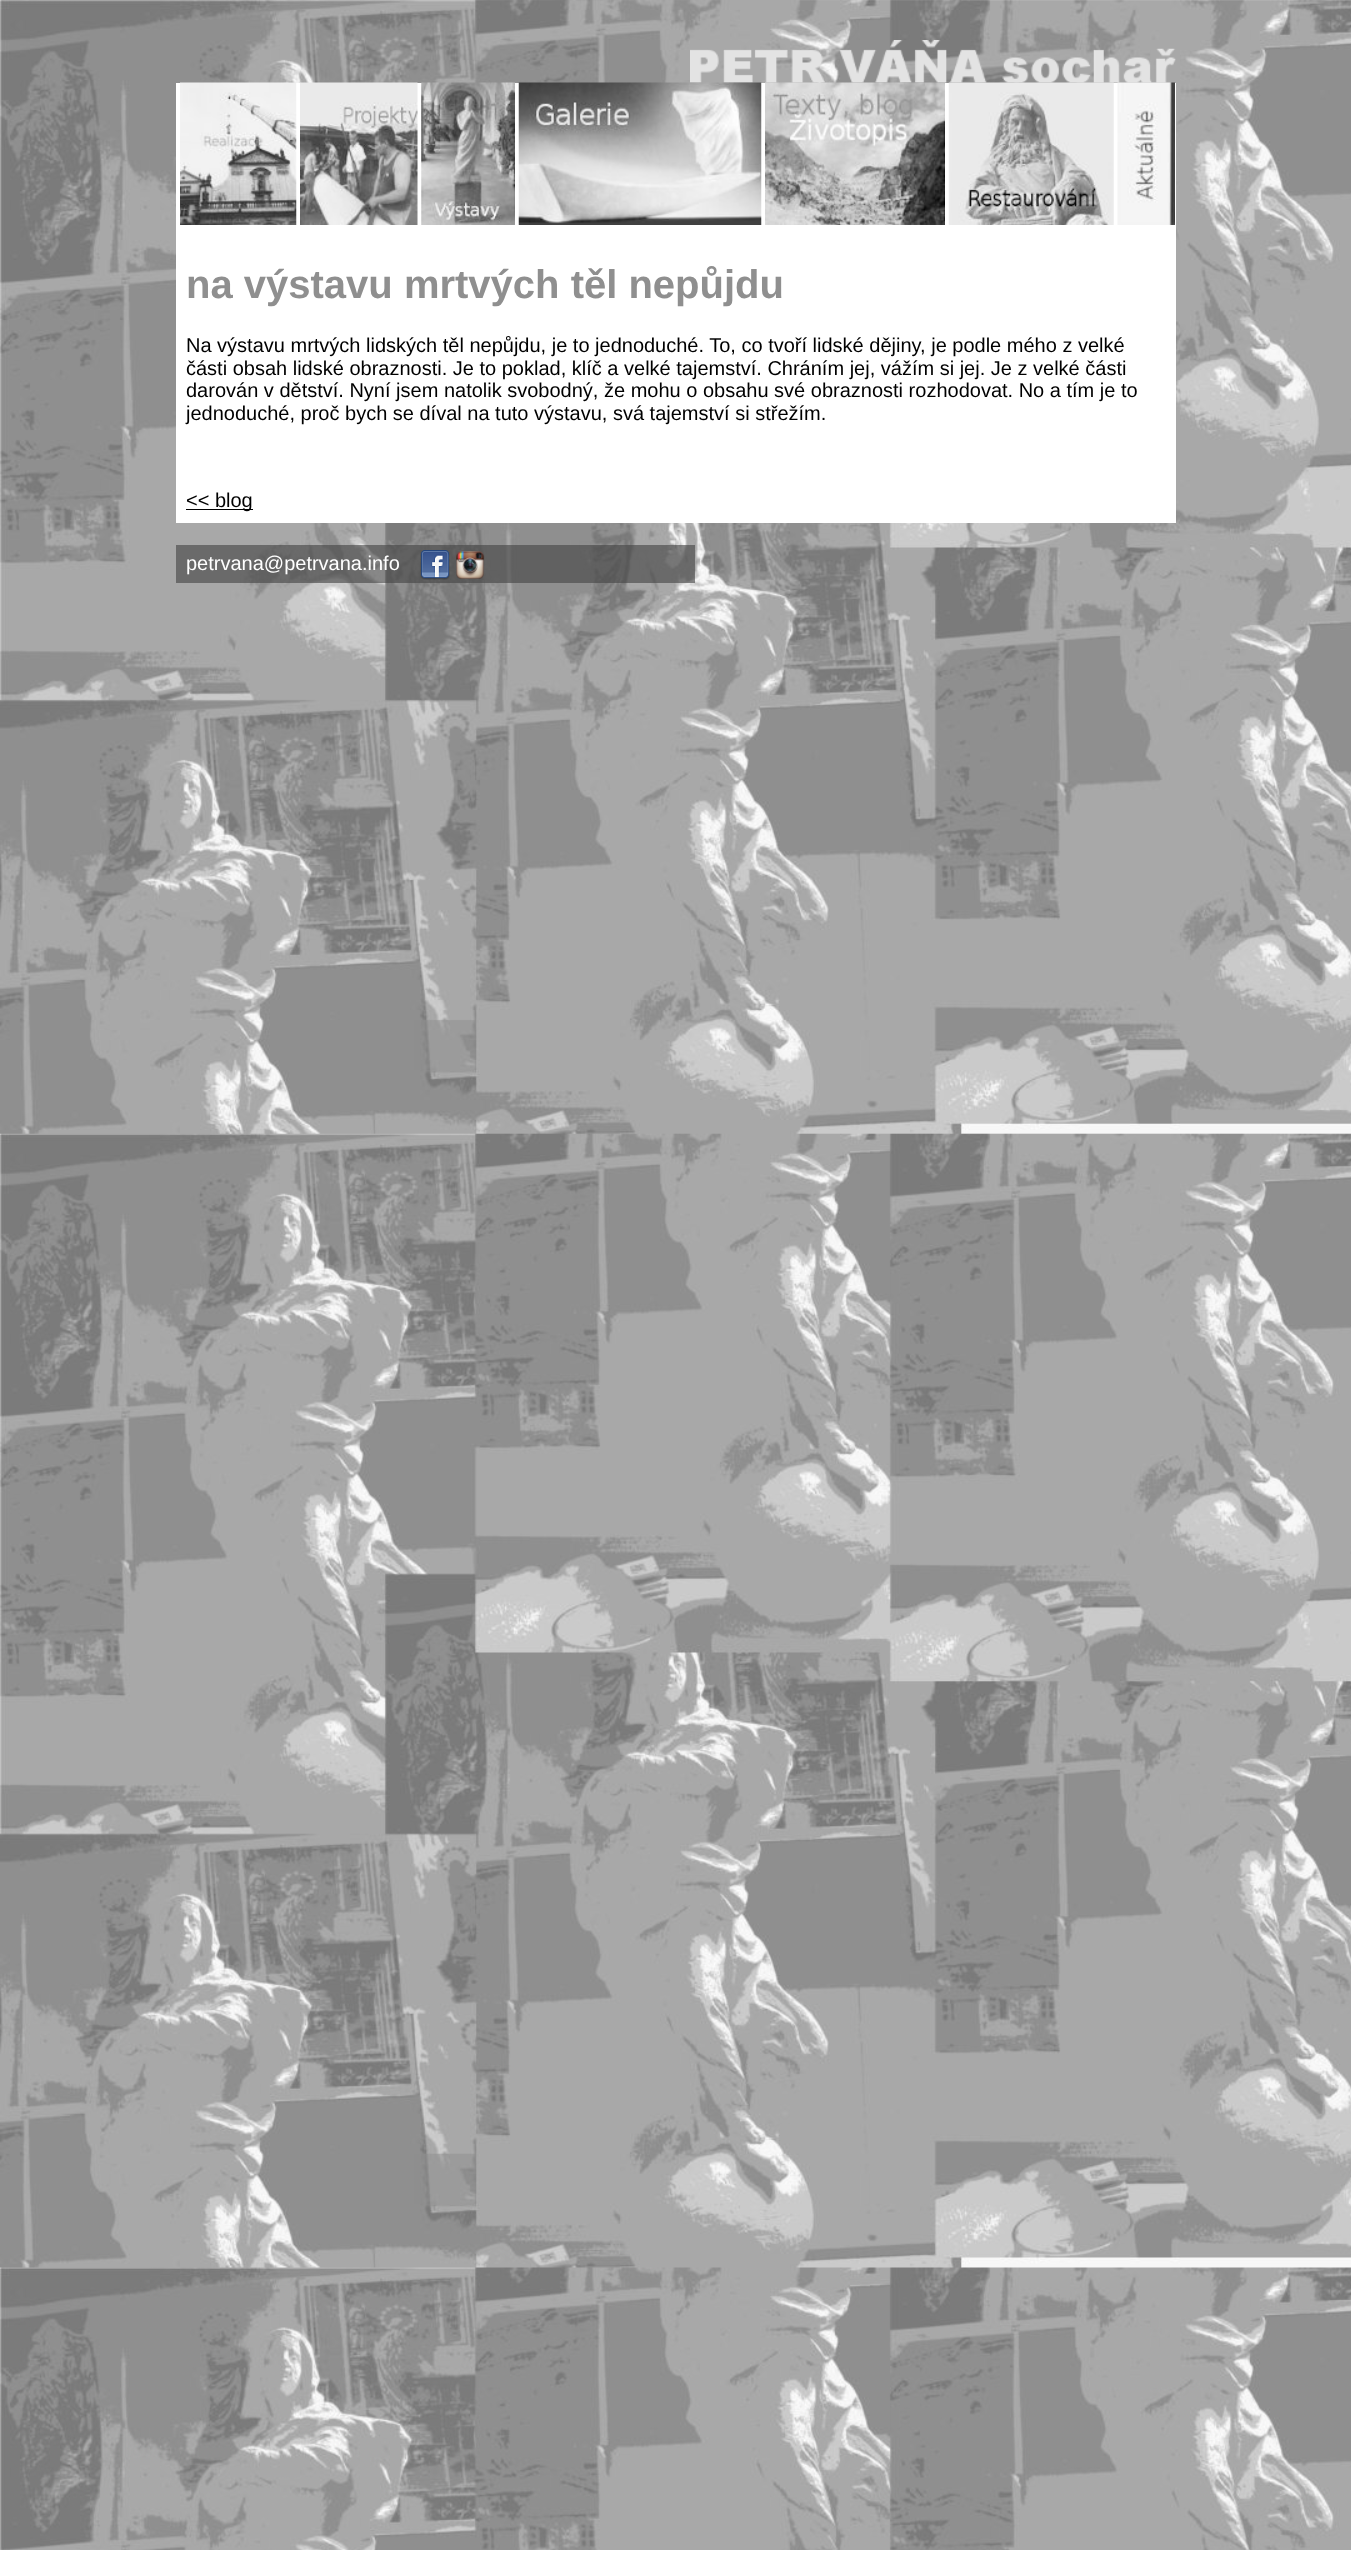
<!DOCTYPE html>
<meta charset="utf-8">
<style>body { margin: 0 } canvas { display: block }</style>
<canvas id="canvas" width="1351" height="2550"></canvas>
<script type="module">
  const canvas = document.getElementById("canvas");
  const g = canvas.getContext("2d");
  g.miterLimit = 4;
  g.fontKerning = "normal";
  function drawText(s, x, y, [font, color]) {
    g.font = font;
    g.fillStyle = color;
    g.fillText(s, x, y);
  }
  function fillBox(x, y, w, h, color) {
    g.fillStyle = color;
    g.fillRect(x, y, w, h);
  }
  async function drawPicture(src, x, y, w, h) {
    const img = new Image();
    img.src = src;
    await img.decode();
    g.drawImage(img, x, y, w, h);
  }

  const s1 = ["bold 40px Liberation Sans", "#8F8F8F"];
  const s2 = ["20px Liberation Sans", "#000000"];
  const s3 = ["20px Liberation Sans", "#FFFFFF"];

  fillBox(0, 0, 1351, 2550, "#FFFFFF");
  await drawPicture("pic1.png", 0, 0, 1351, 2550);
  await drawPicture("pic2.png", 690, 40, 486, 43);
  fillBox(176, 83, 1000, 440, "#FFFFFF");
  await drawPicture("pic3.png", 180, 82, 117, 143);
  await drawPicture("pic4.png", 300, 82, 118, 143);
  await drawPicture("pic5.png", 421, 82, 94, 143);
  await drawPicture("pic6.png", 518, 82, 244, 143);
  await drawPicture("pic7.png", 765, 82, 180, 143);
  await drawPicture("pic8.png", 948, 82, 166, 143);
  await drawPicture("pic9.png", 1117, 82, 58, 143);
  drawText("na výstavu mrtvých těl nepůjdu", 186, 298, s1);
  drawText("Na výstavu mrtvých lidských těl nepůjdu, je to jednoduché. To, co tvoří lidské dějiny, je podle mého z velké", 186, 352, s2);
  drawText("části obsah lidské obraznosti. Je to poklad, klíč a velké tajemství. Chráním jej, vážím si jej. Je z velké části", 186, 375, s2);
  drawText("darován v dětství. Nyní jsem natolik svobodný, že mohu o obsahu své obraznosti rozhodovat. No a tím je to", 186, 397, s2);
  drawText("jednoduché, proč bych se díval na tuto výstavu, svá tajemství si střežím.", 186, 420, s2);
  fillBox(186, 509, 67, 1, "#000000");
  drawText("<< blog", 186, 507, s2);
  fillBox(176, 545, 519, 38, "rgba(70, 70, 70, 0.63)");
  drawText("petrvana@petrvana.info", 186, 570, s3);
  await drawPicture("pic10.png", 420, 550, 30, 30);
  await drawPicture("pic11.png", 456, 551, 29, 28);
</script>
